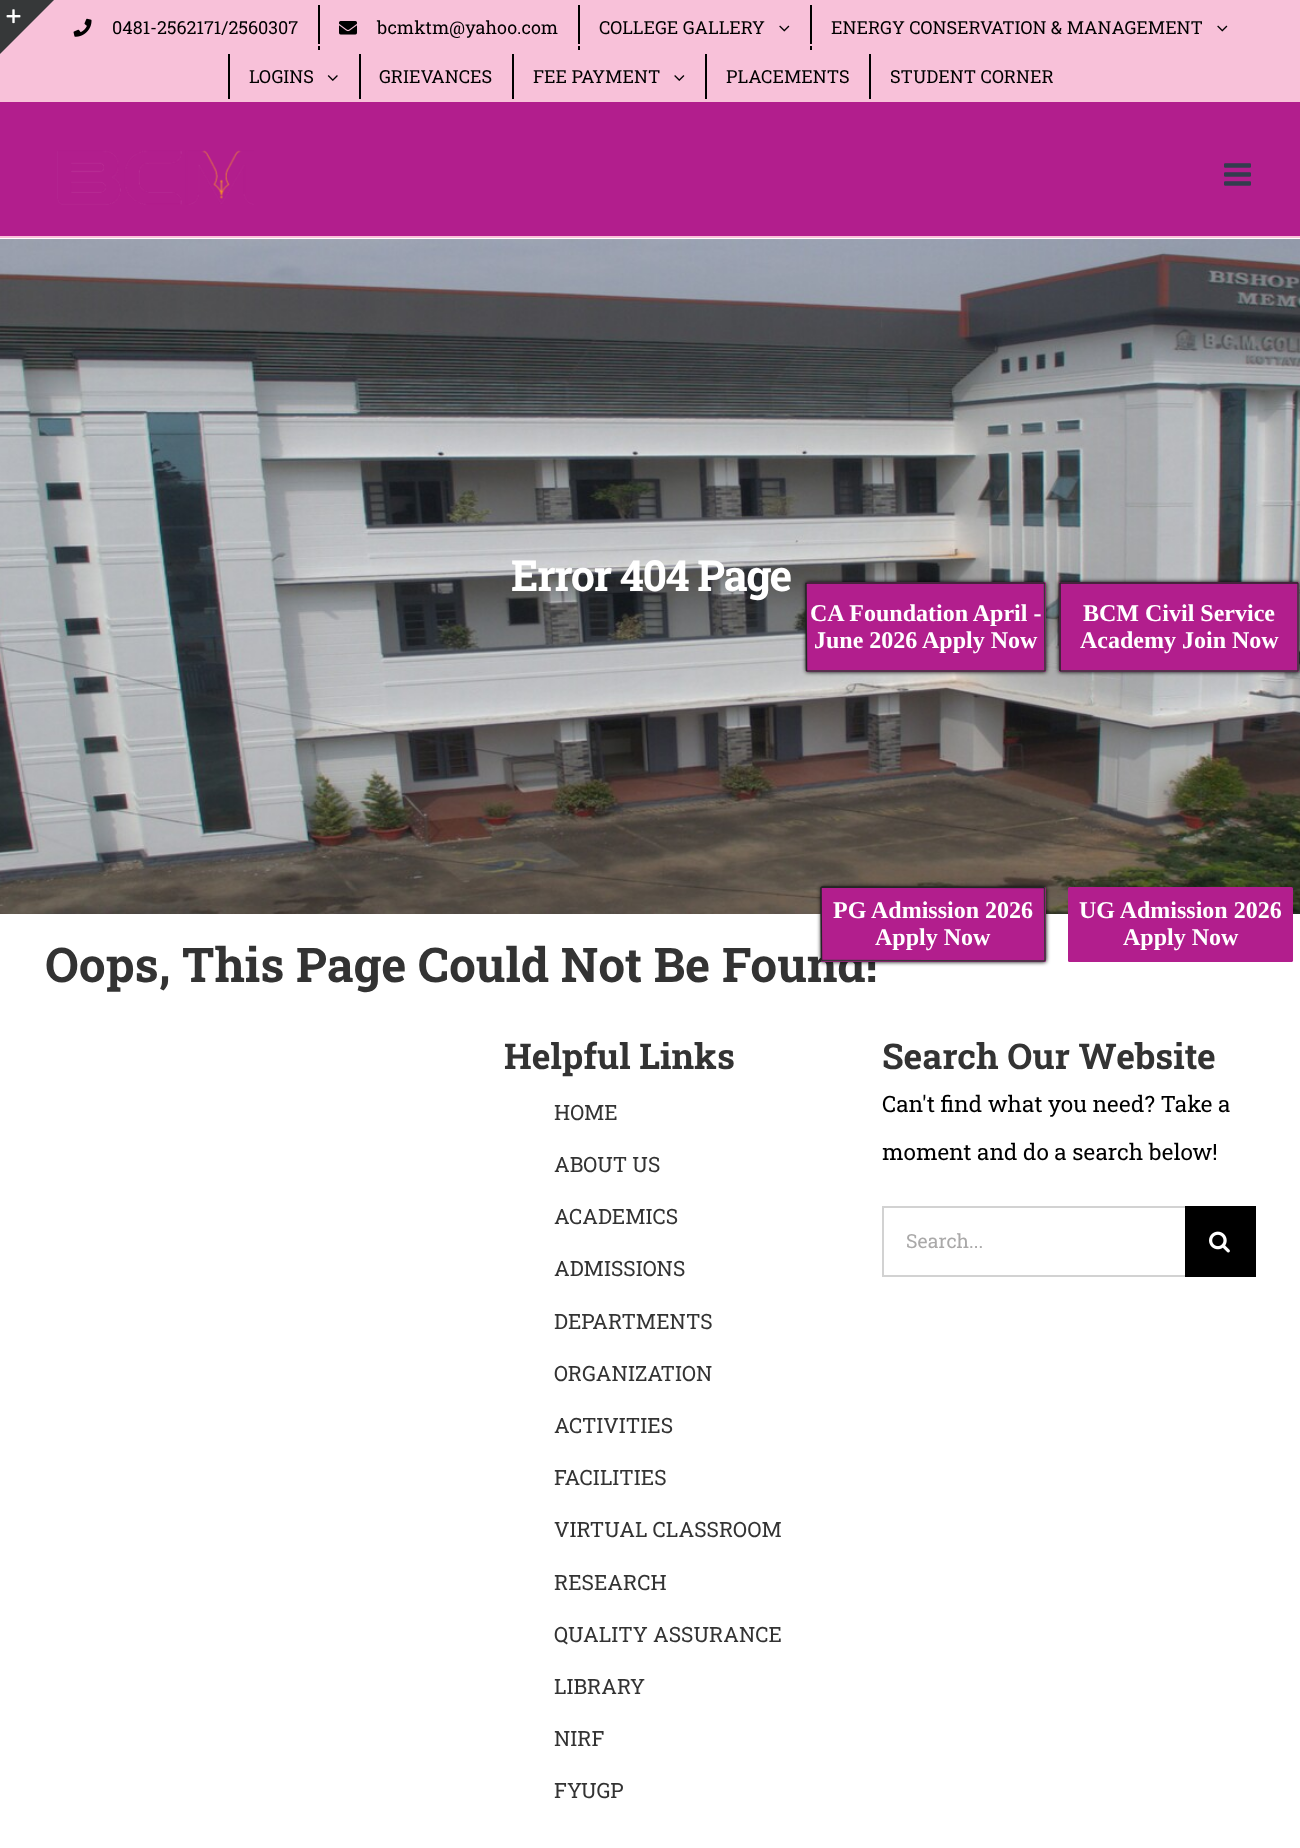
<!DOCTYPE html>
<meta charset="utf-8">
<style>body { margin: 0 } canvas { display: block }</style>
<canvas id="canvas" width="1300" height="1848"></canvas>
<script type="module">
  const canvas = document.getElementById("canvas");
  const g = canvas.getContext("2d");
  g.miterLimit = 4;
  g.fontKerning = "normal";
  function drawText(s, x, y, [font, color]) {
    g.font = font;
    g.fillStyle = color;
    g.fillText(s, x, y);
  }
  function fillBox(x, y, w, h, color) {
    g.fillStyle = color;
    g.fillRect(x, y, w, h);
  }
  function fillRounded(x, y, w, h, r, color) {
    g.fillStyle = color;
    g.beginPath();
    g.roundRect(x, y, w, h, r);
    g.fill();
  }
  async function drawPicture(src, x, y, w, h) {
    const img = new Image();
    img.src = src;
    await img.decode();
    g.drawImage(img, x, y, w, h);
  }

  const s1 = ["18px Roboto Slab", "#000000"];
  const s2 = ["bold 43px Roboto Slab", "#FFFFFF"];
  const s3 = ["bold 47.75px Roboto Slab", "#333333"];
  const s4 = ["bold 35.5px Roboto Slab", "#333333"];
  const s5 = ["21px Roboto Slab", "#333333"];
  const s6 = ["22.5px Roboto Slab", "#000000"];
  const s7 = ["19.5px Roboto Slab", "#AAA9A9"];
  const s8 = ["bold 24px Liberation Serif", "#FFFFFF"];

  fillBox(0, 0, 1300, 1848, "#FFFFFF");
  fillBox(0, 0, 1300, 102, "#F8C1D9");
  g.fillStyle = "#363839";
  g.beginPath();
  g.moveTo(0, 0);
  g.lineTo(54, 0);
  g.lineTo(0, 54);
  g.closePath();
  g.fill();
  await drawPicture("pic1.png", 6, 9, 15, 15);
  await drawPicture("pic2.png", 73, 18, 19, 19);
  drawText("0481-2562171/2560307", 112, 34, s1);
  fillBox(318, 5, 2, 45, "#000000");
  await drawPicture("pic3.png", 339, 21, 18, 14);
  drawText("bcmktm@yahoo.com", 377, 34, s1);
  fillBox(578, 5, 2, 45, "#000000");
  drawText("COLLEGE GALLERY", 599, 34, s1);
  await drawPicture("pic4.png", 779, 25, 11, 7);
  fillBox(810, 5, 2, 45, "#000000");
  drawText("ENERGY CONSERVATION & MANAGEMENT", 831, 34, s1);
  await drawPicture("pic4.png", 1217, 25, 11, 7);
  fillBox(318, 44, 494, 2, "#F8C1D9");
  fillBox(228, 54, 2, 45, "#000000");
  drawText("LOGINS", 249, 83, s1);
  await drawPicture("pic5.png", 327, 75, 11, 6);
  fillBox(359, 54, 2, 45, "#000000");
  drawText("GRIEVANCES", 379, 83, s1);
  fillBox(512, 54, 2, 45, "#000000");
  drawText("FEE PAYMENT", 533, 83, s1);
  await drawPicture("pic6.png", 674, 75, 11, 6);
  fillBox(705, 54, 2, 45, "#000000");
  drawText("PLACEMENTS", 726, 83, s1);
  fillBox(869, 54, 2, 45, "#000000");
  drawText("STUDENT CORNER", 890, 83, s1);
  fillBox(0, 102, 1300, 134, "#B21E8D");
  fillBox(0, 236, 1300, 2, "#F8C1D9");
  await drawPicture("pic7.png", 57, 150, 197, 55);
  await drawPicture("pic8.png", 1224, 163, 27, 23);
  await drawPicture("pic9.png", 0, 239, 1300, 675);
  g.letterSpacing = "-1.5px";
  drawText("Error 404 Page", 511, 591, s2);
  g.letterSpacing = "0px";
  drawText("Oops, This Page Could Not Be Found!", 45, 982, s3);
  drawText("Helpful Links", 504, 1069, s4);
  drawText("HOME", 554, 1120, s5);
  drawText("ABOUT US", 554, 1172, s5);
  drawText("ACADEMICS", 554, 1224, s5);
  drawText("ADMISSIONS", 554, 1276, s5);
  drawText("DEPARTMENTS", 554, 1329, s5);
  drawText("ORGANIZATION", 554, 1381, s5);
  drawText("ACTIVITIES", 554, 1433, s5);
  drawText("FACILITIES", 554, 1485, s5);
  drawText("VIRTUAL CLASSROOM", 554, 1537, s5);
  drawText("RESEARCH", 554, 1590, s5);
  drawText("QUALITY ASSURANCE", 554, 1642, s5);
  drawText("LIBRARY", 554, 1694, s5);
  drawText("NIRF", 554, 1746, s5);
  drawText("FYUGP", 554, 1798, s5);
  drawText("Search Our Website", 882, 1069, s4);
  drawText("Can't find what you need? Take a", 882, 1112, s6);
  drawText("moment and do a search below!", 882, 1160, s6);
  fillBox(882, 1206, 303, 2, "#D2D2D2");
  fillBox(882, 1275, 303, 2, "#D2D2D2");
  fillBox(882, 1206, 2, 71, "#D2D2D2");
  drawText("Search...", 906, 1248, s7);
  fillBox(1185, 1206, 71, 71, "#000000");
  await drawPicture("pic10.png", 1209, 1231, 21, 22);
  g.fillStyle = "#020202";
  g.filter = "blur(2px)";
  g.beginPath();
  g.roundRect(806, 582, 240, 90, 1.5);
  g.fill();
  g.filter = "none";
  fillRounded(806, 582, 240, 90, 1.5, "#B21E8D");
  g.beginPath();
  g.moveTo(1044.5, 583);
  g.lineTo(1045, 670.5);
  g.lineTo(1044, 671);
  g.lineTo(806.5, 671);
  g.strokeStyle = "#383838";
  g.lineWidth = 1.5;
  g.stroke();
  g.beginPath();
  g.moveTo(806.5, 671);
  g.lineTo(806, 583.5);
  g.lineTo(807, 583);
  g.lineTo(1044.5, 583);
  g.strokeStyle = "#252525";
  g.stroke();
  drawText("CA Foundation April -", 810, 621, s8);
  drawText("June 2026 Apply Now", 814, 648, s8);
  g.fillStyle = "#020202";
  g.filter = "blur(2px)";
  g.beginPath();
  g.roundRect(1059, 582, 240, 90, 1.5);
  g.fill();
  g.filter = "none";
  fillRounded(1059, 582, 240, 90, 1.5, "#B21E8D");
  g.beginPath();
  g.moveTo(1298, 583);
  g.lineTo(1298, 670.5);
  g.lineTo(1297.5, 671);
  g.lineTo(1060, 671);
  g.strokeStyle = "#383838";
  g.stroke();
  g.beginPath();
  g.moveTo(1060, 671);
  g.lineTo(1060, 583.5);
  g.lineTo(1060.5, 583);
  g.lineTo(1298, 583);
  g.strokeStyle = "#252525";
  g.stroke();
  drawText("BCM Civil Service", 1083, 621, s8);
  drawText("Academy Join Now", 1080, 648, s8);
  g.fillStyle = "#020202";
  g.filter = "blur(2px)";
  g.beginPath();
  g.roundRect(821, 887, 225, 75, 1.5);
  g.fill();
  g.filter = "none";
  fillRounded(821, 887, 225, 75, 1.5, "#B21E8D");
  g.beginPath();
  g.moveTo(1044.5, 887.5);
  g.lineTo(1045, 960);
  g.lineTo(1044, 961);
  g.lineTo(821.5, 960.5);
  g.strokeStyle = "#383838";
  g.stroke();
  g.beginPath();
  g.moveTo(821.5, 960.5);
  g.lineTo(821, 888);
  g.lineTo(822, 887);
  g.lineTo(1044.5, 887.5);
  g.strokeStyle = "#252525";
  g.stroke();
  drawText("PG Admission 2026", 833, 918, s8);
  drawText("Apply Now", 875, 945, s8);
  fillRounded(1068, 887, 225, 75, 1.5, "#B21E8D");
  drawText("UG Admission 2026", 1079, 918, s8);
  drawText("Apply Now", 1123, 945, s8);
</script>
